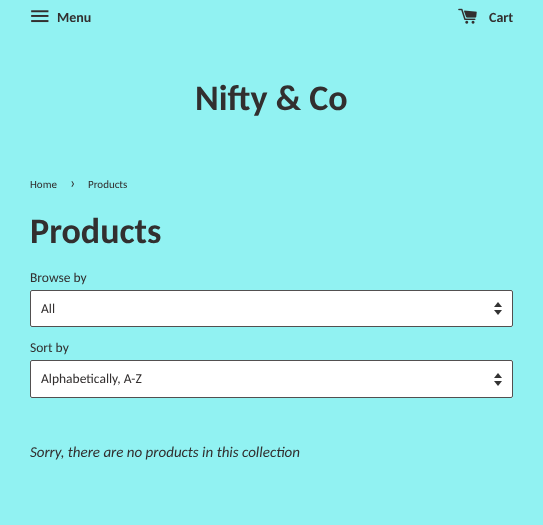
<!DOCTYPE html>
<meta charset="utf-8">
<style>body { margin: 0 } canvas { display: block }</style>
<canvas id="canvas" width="543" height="525"></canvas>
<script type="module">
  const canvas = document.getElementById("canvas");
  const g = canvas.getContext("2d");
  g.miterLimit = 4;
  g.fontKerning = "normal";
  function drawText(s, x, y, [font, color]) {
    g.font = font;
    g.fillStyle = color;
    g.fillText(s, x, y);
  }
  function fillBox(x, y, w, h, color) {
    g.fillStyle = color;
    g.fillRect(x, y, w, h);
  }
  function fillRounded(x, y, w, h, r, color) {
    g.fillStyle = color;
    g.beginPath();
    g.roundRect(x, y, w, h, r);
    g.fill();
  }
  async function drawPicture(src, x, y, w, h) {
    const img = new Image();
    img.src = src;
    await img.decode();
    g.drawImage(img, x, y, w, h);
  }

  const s1 = ["bold 14px Carlito", "#322F2F"];
  const s2 = ["bold 36px Carlito", "#322F2F"];
  const s3 = ["11px Carlito", "#322F2F"];
  const s4 = ["16px Carlito", "#322F2F"];
  const s5 = ["13.5px Carlito", "#322F2F"];
  const s6 = ["italic 15px Carlito", "#322F2F"];

  fillBox(0, 0, 543, 525, "#91F2F2");
  await drawPicture("pic1.png", 31, 10, 18, 13);
  drawText("Menu", 57, 22, s1);
  await drawPicture("pic2.png", 458, 8, 19, 16);
  drawText("Cart", 489, 22, s1);
  drawText("Nifty & Co", 195, 110, s2);
  drawText("Home", 30, 188, s3);
  drawText("›", 70, 188, s4);
  drawText("Products", 88, 188, s3);
  drawText("Products", 30, 243, s2);
  drawText("Browse by", 30, 282, s5);
  fillRounded(30, 290, 483, 37, 2, "#FFFFFF");
  await drawPicture("pic3.png", 494, 302, 8, 13);
  g.beginPath();
  g.roundRect(30.5, 290.5, 482, 36, 1.5);
  g.strokeStyle = "#525050";
  g.stroke();
  drawText("All", 41, 313, s5);
  drawText("Sort by", 30, 352, s5);
  fillRounded(30, 360, 483, 38, 2, "#FFFFFF");
  await drawPicture("pic3.png", 494, 373, 8, 13);
  g.beginPath();
  g.roundRect(30.5, 360.5, 482, 37, 1.5);
  g.stroke();
  drawText("Alphabetically, A-Z", 41, 383, s5);
  drawText("Sorry, there are no products in this collection", 30, 457, s6);
</script>
